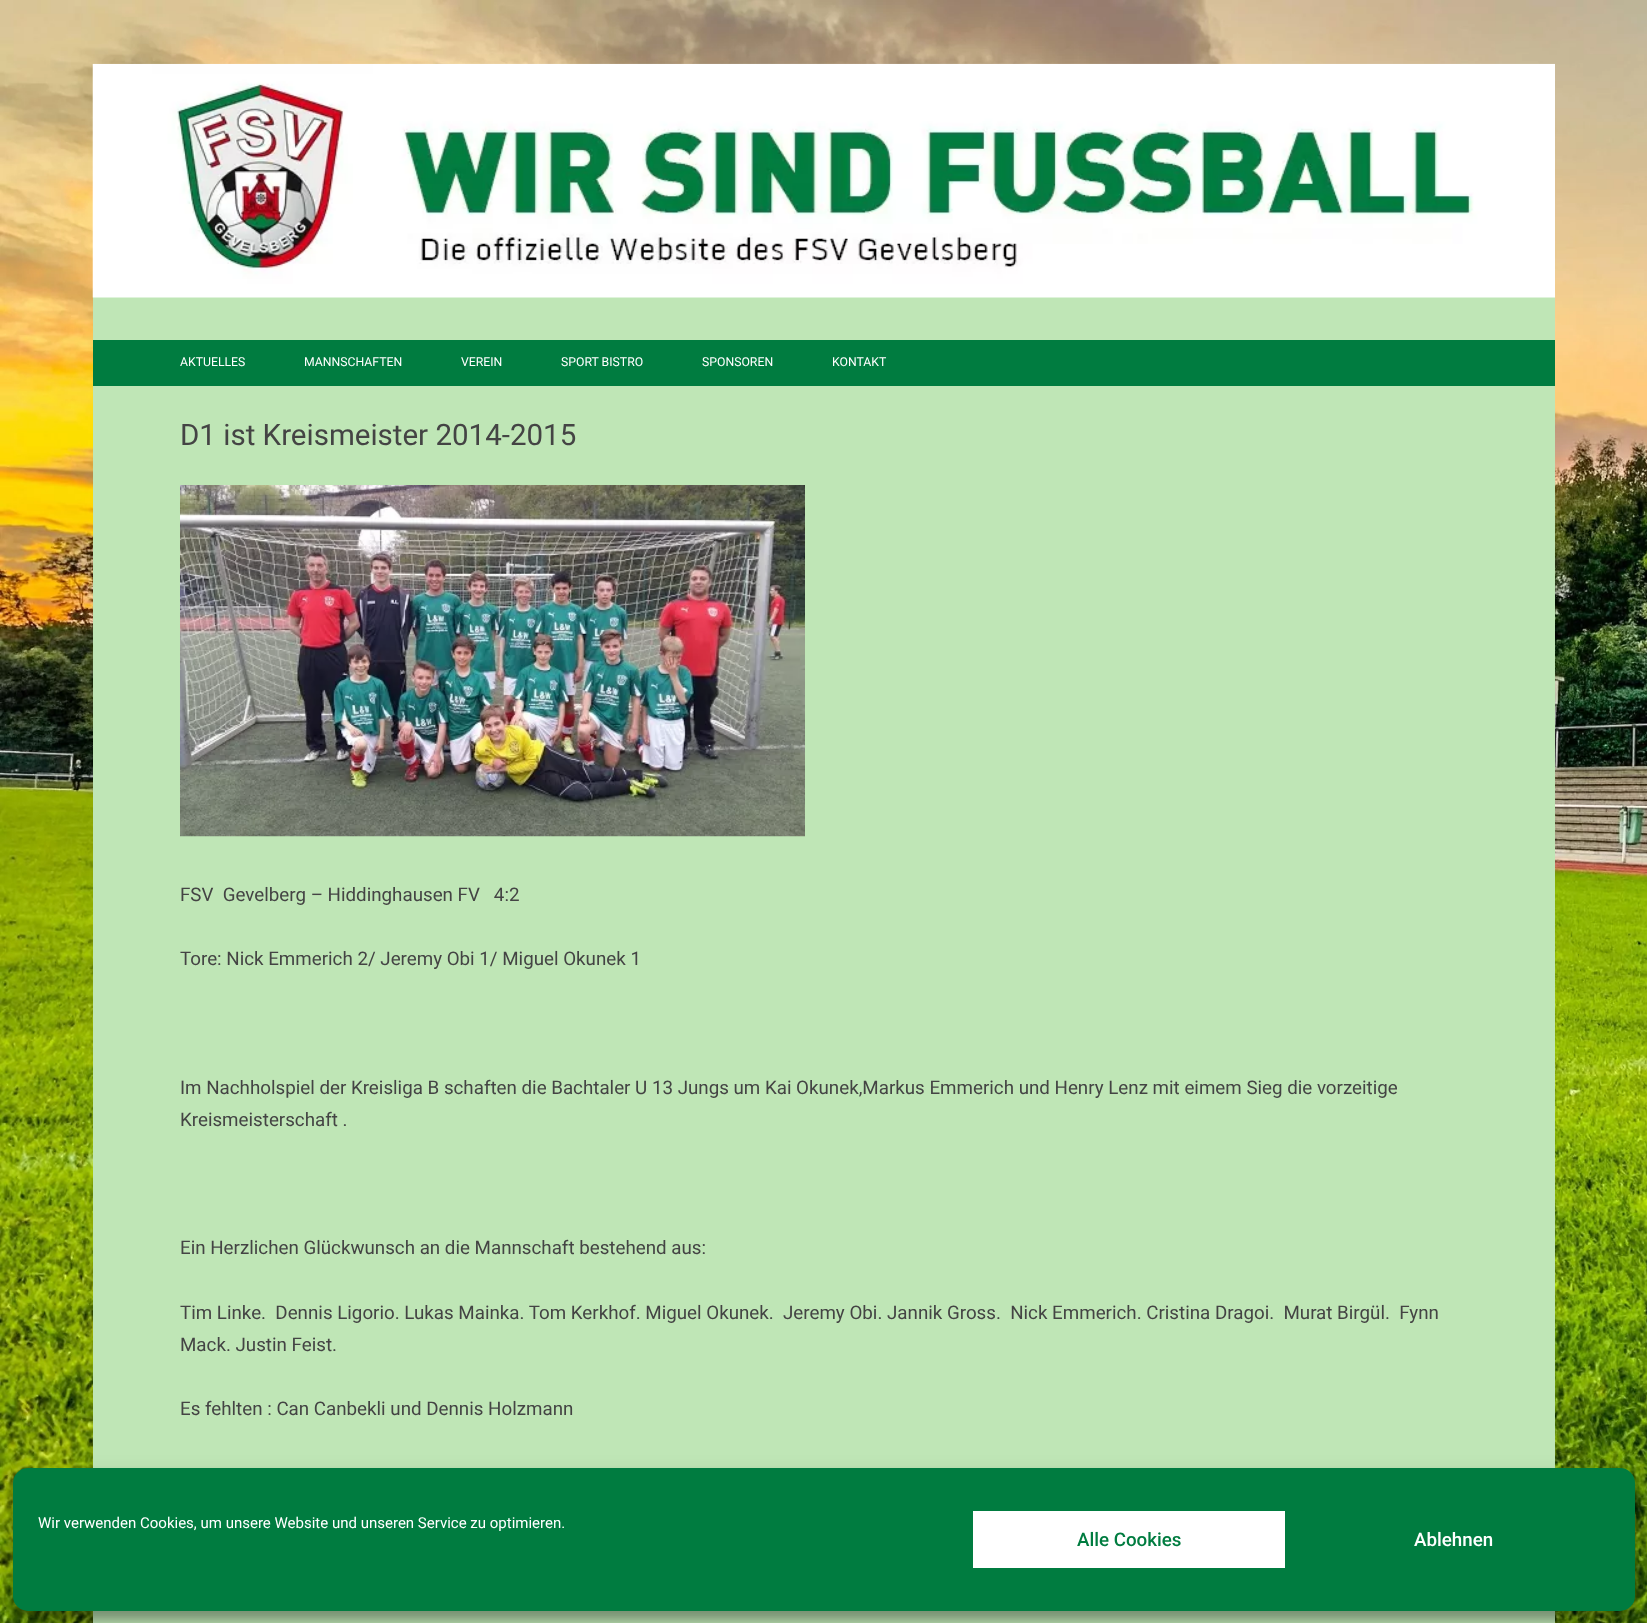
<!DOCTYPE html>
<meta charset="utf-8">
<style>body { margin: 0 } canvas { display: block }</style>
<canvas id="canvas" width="1647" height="1623"></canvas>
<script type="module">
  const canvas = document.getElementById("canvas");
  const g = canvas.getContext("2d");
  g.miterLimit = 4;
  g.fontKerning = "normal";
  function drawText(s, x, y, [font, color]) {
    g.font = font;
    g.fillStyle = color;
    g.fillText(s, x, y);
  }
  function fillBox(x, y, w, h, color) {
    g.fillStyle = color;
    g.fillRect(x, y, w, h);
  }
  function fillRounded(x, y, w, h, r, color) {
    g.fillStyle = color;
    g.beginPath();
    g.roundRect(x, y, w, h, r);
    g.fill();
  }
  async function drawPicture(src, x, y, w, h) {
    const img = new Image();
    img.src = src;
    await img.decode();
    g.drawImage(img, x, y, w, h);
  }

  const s1 = ["12.25px Roboto", "#FFFFFF"];
  const s2 = ["29.5px Roboto", "#444444"];
  const s3 = ["18.75px Roboto", "#444444"];
  const s4 = ["15px Roboto", "#FFFFFF"];
  const s5 = ["500 18.75px Roboto", "#007C40"];
  const s6 = ["500 18.75px Roboto", "#FFFFFF"];

  fillBox(0, 0, 1647, 1623, "#FFFFFF");
  await drawPicture("pic1.png", 0, 0, 1647, 1623);
  fillBox(93, 297, 1462, 1326, "#BFE6B6");
  await drawPicture("pic2.png", 92, 63, 1463, 235);
  fillBox(93, 340, 1462, 46, "#007C40");
  drawText("AKTUELLES", 180, 366, s1);
  drawText("MANNSCHAFTEN", 304, 366, s1);
  drawText("VEREIN", 461, 366, s1);
  drawText("SPORT BISTRO", 561, 366, s1);
  drawText("SPONSOREN", 702, 366, s1);
  drawText("KONTAKT", 832, 366, s1);
  drawText("D1 ist Kreismeister 2014-2015", 180, 445, s2);
  await drawPicture("pic3.png", 180, 485, 625, 352);
  drawText("FSV  Gevelberg – Hiddinghausen FV   4:2", 180, 901, s3);
  drawText("Tore: Nick Emmerich 2/ Jeremy Obi 1/ Miguel Okunek 1", 180, 965, s3);
  drawText("Im Nachholspiel der Kreisliga B schaften die Bachtaler U 13 Jungs um Kai Okunek,Markus Emmerich und Henry Lenz mit eimem Sieg die vorzeitige", 180, 1094, s3);
  drawText("Kreismeisterschaft .", 180, 1126, s3);
  drawText("Ein Herzlichen Glückwunsch an die Mannschaft bestehend aus:", 180, 1254, s3);
  drawText("Tim Linke.  Dennis Ligorio. Lukas Mainka. Tom Kerkhof. Miguel Okunek.  Jeremy Obi. Jannik Gross.  Nick Emmerich. Cristina Dragoi.  Murat Birgül.  Fynn", 180, 1319, s3);
  drawText("Mack. Justin Feist.", 180, 1351, s3);
  drawText("Es fehlten : Can Canbekli und Dennis Holzmann", 180, 1415, s3);
  g.fillStyle = "rgba(0, 0, 0, 0.23)";
  g.filter = "blur(4px)";
  g.beginPath();
  g.roundRect(13, 1475, 1622, 144, 15);
  g.fill();
  g.filter = "none";
  g.fillStyle = "rgba(0, 0, 0, 0.19)";
  g.filter = "blur(12.5px)";
  g.beginPath();
  g.roundRect(13, 1480, 1622, 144, 15);
  g.fill();
  g.filter = "none";
  fillRounded(13, 1468, 1622, 143, 15, "#007C40");
  drawText("Wir verwenden Cookies, um unsere Website und unseren Service zu optimieren.", 38, 1528, s4);
  fillBox(973, 1511, 312, 57, "#FFFFFF");
  drawText("Alle Cookies", 1077, 1546, s5);
  drawText("Ablehnen", 1414, 1546, s6);
</script>
